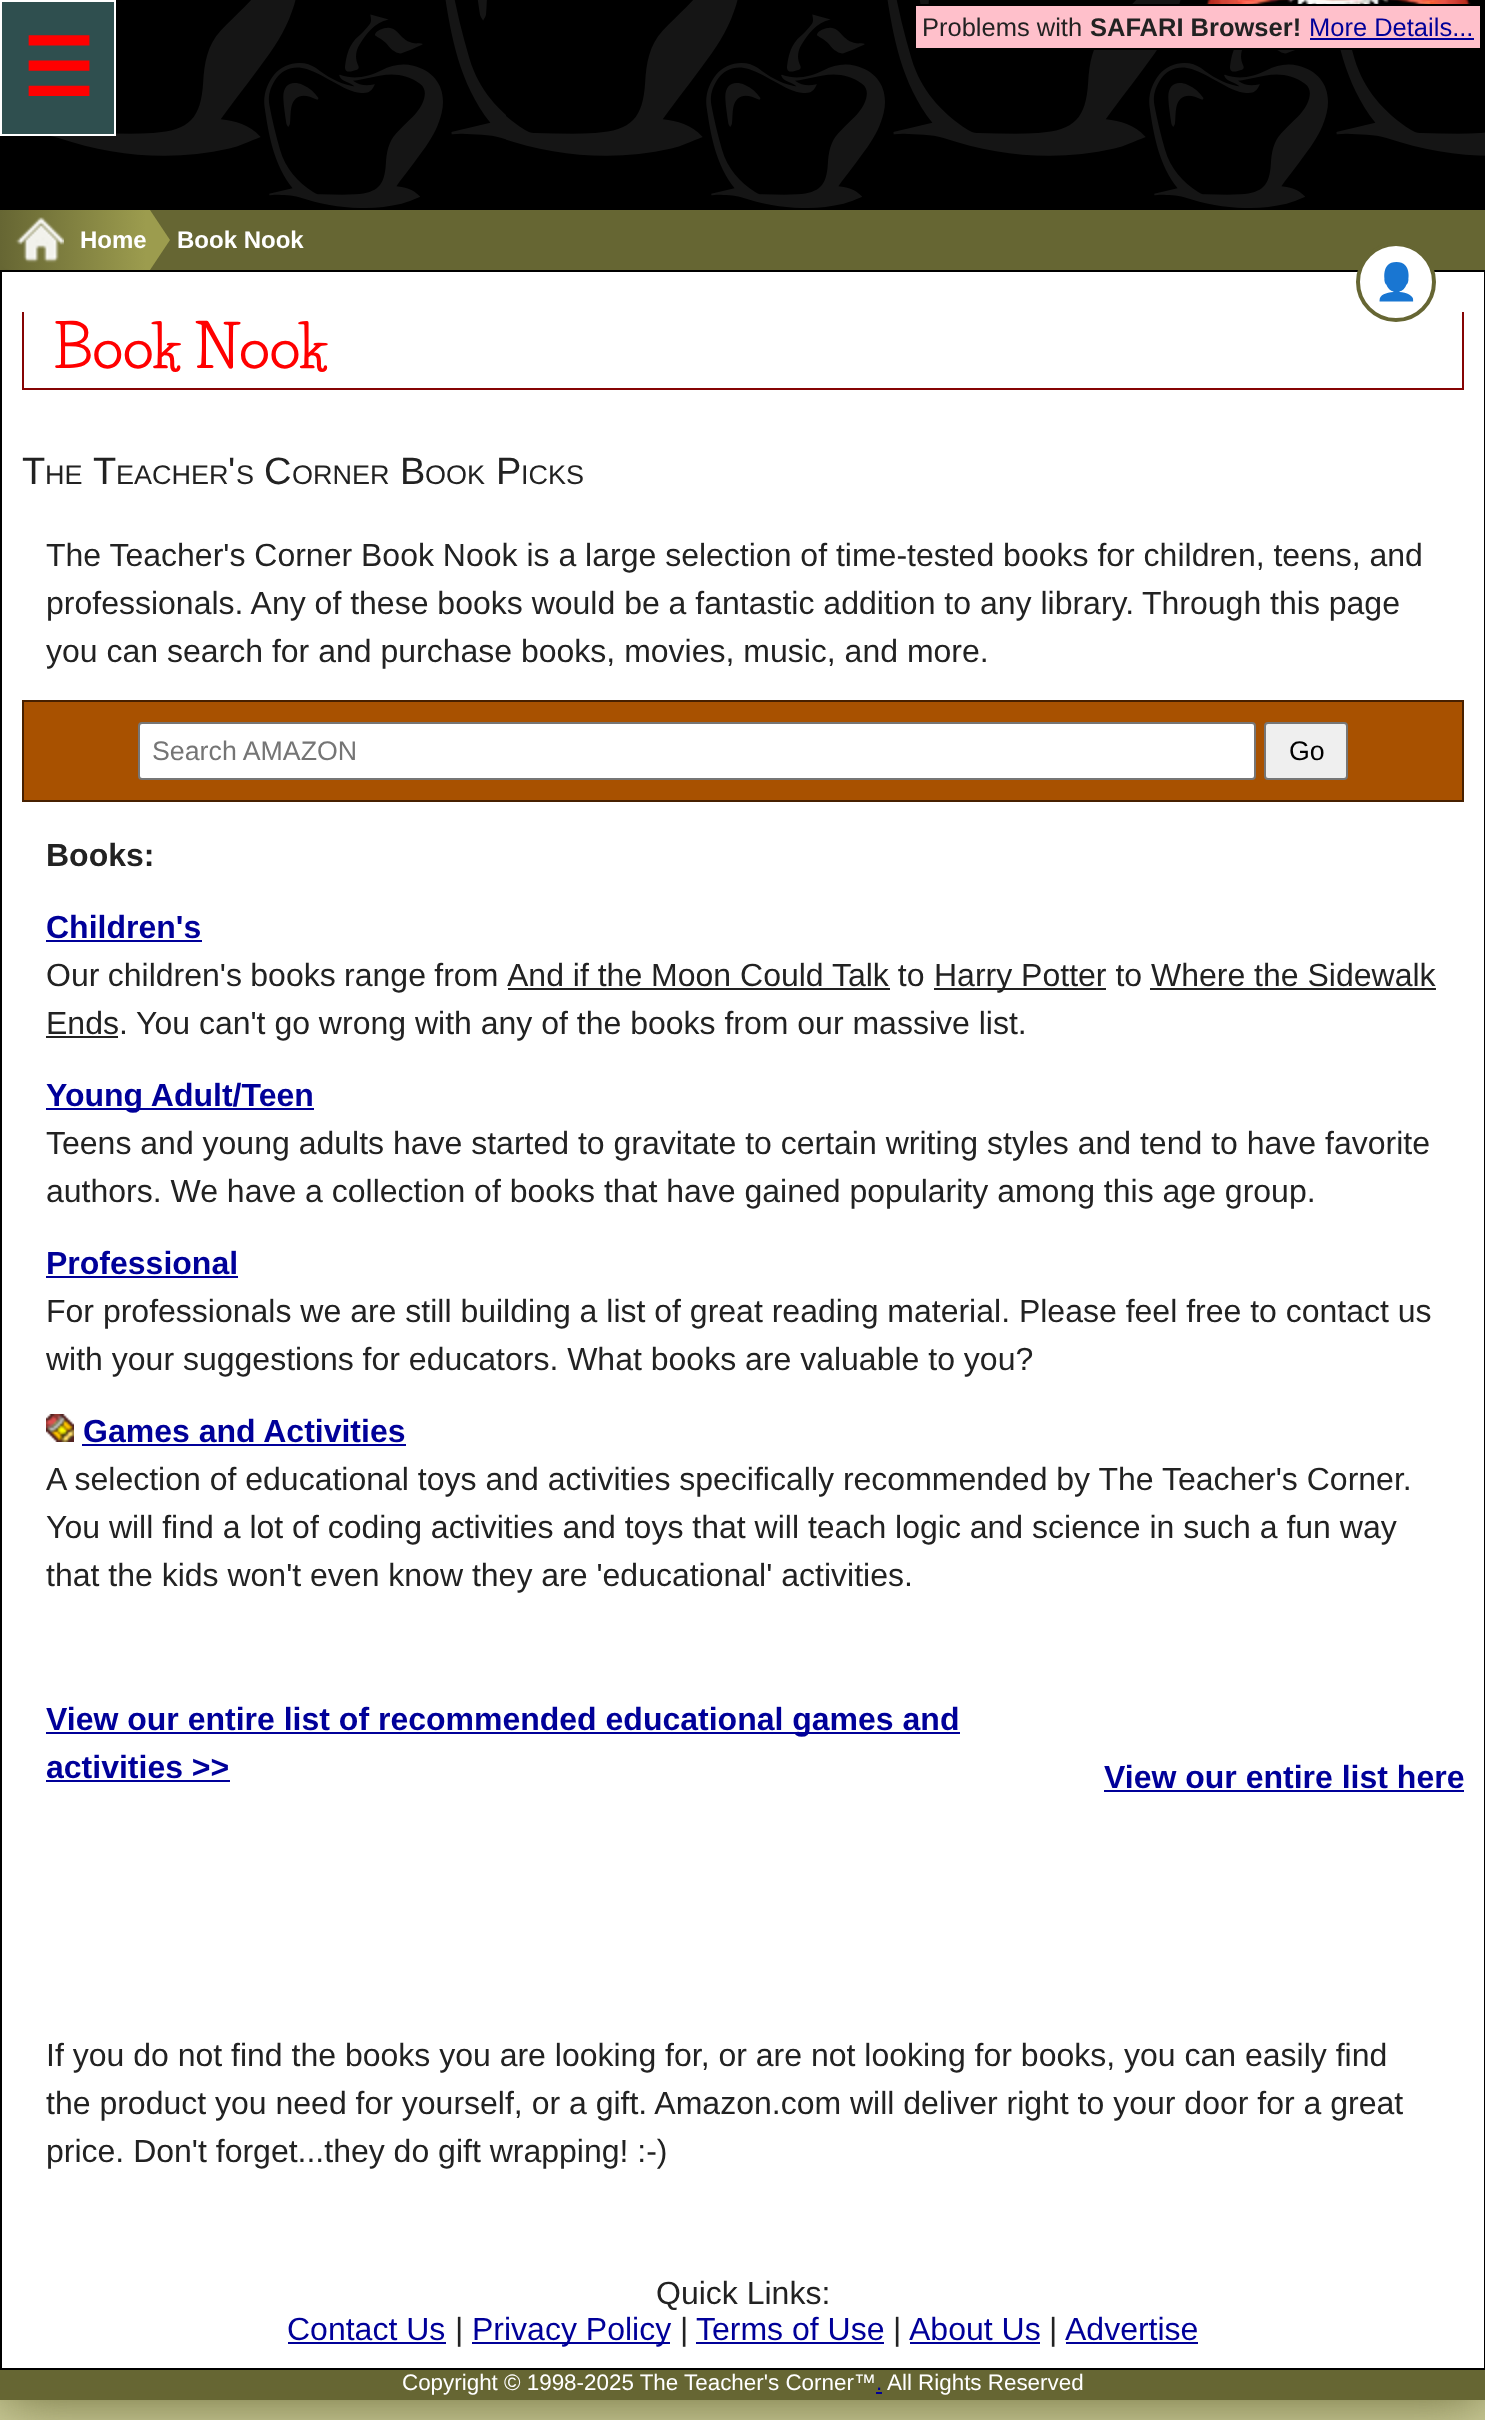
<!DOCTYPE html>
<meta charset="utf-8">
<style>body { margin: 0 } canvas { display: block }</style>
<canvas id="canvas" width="1485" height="2420"></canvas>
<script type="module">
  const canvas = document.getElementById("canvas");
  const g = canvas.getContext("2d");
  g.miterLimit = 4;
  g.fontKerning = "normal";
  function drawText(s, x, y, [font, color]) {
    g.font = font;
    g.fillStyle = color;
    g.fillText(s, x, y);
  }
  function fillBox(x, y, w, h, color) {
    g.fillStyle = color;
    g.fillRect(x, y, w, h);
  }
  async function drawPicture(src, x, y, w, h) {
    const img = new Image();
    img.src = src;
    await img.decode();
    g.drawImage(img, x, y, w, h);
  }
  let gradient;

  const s1 = ["25.5px Liberation Sans", "#222222"];
  const s2 = ["bold 25.5px Liberation Sans", "#222222"];
  const s3 = ["25.5px Liberation Sans", "#000099"];
  const s4 = ["bold 80px DejaVu Sans", "#FF0000"];
  const s5 = ["bold 24px Liberation Sans", "#FFFFFF"];
  const s6 = ["bold 57.5px Life Savers", "#FF0000"];
  const s7 = ["38px Liberation Sans", "#222222"];
  const s8 = ["27px Liberation Sans", "#222222"];
  const s9 = ["32px Liberation Sans", "#222222"];
  const s10 = ["26.75px Liberation Sans", "#757575"];
  const s11 = ["26.75px Liberation Sans", "#000000"];
  const s12 = ["bold 32px Liberation Sans", "#222222"];
  const s13 = ["bold 32px Liberation Sans", "#000099"];
  const s14 = ["32px Liberation Sans", "#000099"];
  const s15 = ["22.4px Liberation Sans", "#FFFFFF"];
  const s16 = ["22.4px Liberation Sans", "#000099"];
  const s17 = ["36px Noto Color Emoji", "#666633"];

  fillBox(0, 0, 1485, 2420, "#CCCC99");
  g.fillStyle = "#666633";
  g.filter = "blur(30px)";
  g.beginPath();
  g.rect(0, 208, 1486, 2192);
  g.fill();
  g.filter = "none";
  fillBox(0, 0, 1485, 210, "#000000");
  await drawPicture("pic1.png", 50, 0, 1435, 208);
  await drawPicture("pic2.png", 1205, 0, 266, 4);
  g.fillStyle = "#FFC0CB";
  g.beginPath();
  g.rect(915, 5, 566, 44);
  g.fill();
  g.strokeStyle = "#000000";
  g.lineWidth = 2;
  g.stroke();
  drawText("Problems with", 922, 36, s1);
  drawText("SAFARI Browser!", 1090, 36, s2);
  drawText("More Details...", 1309, 36, s3);
  fillBox(1310, 38, 164, 2, "#000099");
  g.fillStyle = "#2F4F4F";
  g.beginPath();
  g.rect(1, 1, 114, 134);
  g.fill();
  g.strokeStyle = "#FFFFFF";
  g.stroke();
  drawText("☰", 22, 96, s4);
  fillBox(0, 210, 1485, 60, "#666633");
  fillBox(0, 270, 1485, 2, "#000000");
  gradient = g.createLinearGradient(0, 240, 146, 240);
  gradient.addColorStop(0, "#666633");
  gradient.addColorStop(1, "#9C9C4E");
  g.fillStyle = gradient;
  g.beginPath();
  g.roundRect(0, 210, 146, 60, [0, 0, 0, 10]);
  g.fill();
  drawText("Home", 80, 248, s5);
  g.save();
  g.beginPath();
  g.rect(0, 210, 304, 60);
  g.clip();
  g.fillStyle = "#9C9C4E";
  g.beginPath();
  g.moveTo(146, 276);
  g.lineTo(146, 204);
  g.lineTo(170, 240);
  g.closePath();
  g.fill();
  g.restore();
  await drawPicture("pic3.png", 15, 217, 49, 46);
  drawText("Book Nook", 177, 248, s5);
  fillBox(2, 272, 1482, 2096, "#FFFFFF");
  fillBox(1484, 272, 1, 2096, "#000000");
  fillBox(0, 272, 2, 2096, "#000000");
  fillBox(1462, 312, 2, 78, "#860404");
  fillBox(22, 388, 1442, 2, "#860404");
  fillBox(22, 312, 2, 78, "#860404");
  drawText("Book Nook", 53, 368, s6);
  drawText("T", 22, 484, s7);
  drawText("HE", 45, 484, s8);
  drawText("T", 93, 484, s7);
  drawText("'", 228, 484, s7);
  drawText("C", 264, 484, s7);
  drawText("B", 400, 484, s7);
  drawText("P", 496, 484, s7);
  drawText("EACHER S", 116, 484, s8);
  drawText("ORNER", 292, 484, s8);
  drawText("OOK", 425, 484, s8);
  drawText("ICKS", 521, 484, s8);
  drawText("The Teacher's Corner Book Nook is a large selection of time-tested books for children, teens, and", 46, 566, s9);
  drawText("professionals. Any of these books would be a fantastic addition to any library.", 46, 614, s9);
  drawText("Through this page", 1142, 614, s9);
  drawText("you can search for and purchase books, movies, music, and more.", 46, 662, s9);
  g.fillStyle = "#A85100";
  g.beginPath();
  g.rect(23, 701, 1440, 100);
  g.fill();
  g.strokeStyle = "#472000";
  g.stroke();
  g.fillStyle = "#FFFFFF";
  g.beginPath();
  g.roundRect(139, 723, 1116, 56, 3);
  g.fill();
  g.strokeStyle = "#767676";
  g.stroke();
  drawText("Search AMAZON", 152, 760, s10);
  g.fillStyle = "#EFEFEF";
  g.beginPath();
  g.roundRect(1265, 723, 82, 56, 3);
  g.fill();
  g.stroke();
  drawText("Go", 1289, 760, s11);
  drawText("Books:", 46, 866, s12);
  drawText("Children's", 46, 938, s13);
  fillBox(46, 940, 156, 2, "#000099");
  g.wordSpacing = "-0.5px";
  drawText("Our children's books range from", 46, 986, s9);
  g.wordSpacing = "0px";
  drawText("And if the Moon Could Talk to", 507, 986, s9);
  fillBox(508, 988, 382, 2, "#222222");
  fillBox(934, 988, 172, 2, "#222222");
  drawText("Harry Potter to Where the Sidewalk", 934, 986, s9);
  drawText("Ends.", 46, 1034, s9);
  fillBox(1150, 988, 286, 2, "#222222");
  fillBox(46, 1036, 72, 2, "#222222");
  drawText("You can't go wrong with any of the books from our massive list.", 136, 1034, s9);
  fillBox(46, 1108, 268, 2, "#000099");
  drawText("Young Adult/Teen", 46, 1106, s13);
  drawText("Teens and young adults have started to gravitate to certain writing styles and tend to have favorite", 46, 1154, s9);
  drawText("authors. We have a collection of books that have gained popularity among this age group.", 46, 1202, s9);
  drawText("Professional", 46, 1274, s13);
  fillBox(46, 1276, 192, 2, "#000099");
  drawText("For professionals we are still building a list of great reading material. Please feel free to contact us", 46, 1322, s9);
  drawText("with your suggestions for educators. What books are valuable to you?", 46, 1370, s9);
  await drawPicture("pic4.png", 46, 1414, 28, 28);
  drawText("Games and Activities", 83, 1442, s13);
  fillBox(82, 1444, 324, 2, "#000099");
  drawText("A selection of educational toys and activities specifically recommended by The Teacher's Corner.", 46, 1490, s9);
  drawText("You will find a lot of coding activities and toys that will teach logic and science in such a fun way", 46, 1538, s9);
  drawText("that the kids won't even know they are 'educational' activities.", 46, 1586, s9);
  fillBox(46, 1732, 914, 2, "#000099");
  drawText("View our entire list of recommended educational games and", 46, 1730, s13);
  drawText("activities >>", 46, 1778, s13);
  fillBox(46, 1780, 184, 2, "#000099");
  drawText("View our entire list here", 1104, 1788, s13);
  fillBox(1104, 1790, 360, 2, "#000099");
  drawText("If you do not find the books you are looking for, or are not looking for books, you can easily find", 46, 2066, s9);
  drawText("the product you need for yourself, or a gift. Amazon.com will deliver right to your door for a great", 46, 2114, s9);
  drawText("price. Don't forget...they do gift wrapping! :-)", 46, 2162, s9);
  drawText("Quick Links:", 656, 2304, s9);
  drawText("Contact Us", 287, 2340, s14);
  fillBox(288, 2342, 158, 2, "#000099");
  drawText("|", 455, 2340, s9);
  fillBox(472, 2342, 198, 2, "#000099");
  drawText("Privacy Policy", 472, 2340, s14);
  drawText("|", 680, 2340, s9);
  drawText("Terms of Use", 696, 2340, s14);
  fillBox(696, 2342, 188, 2, "#000099");
  drawText("|", 893, 2340, s9);
  drawText("About Us", 909, 2340, s14);
  fillBox(910, 2342, 130, 2, "#000099");
  drawText("|", 1049, 2340, s9);
  drawText("Advertise", 1065, 2340, s14);
  fillBox(1066, 2342, 132, 2, "#000099");
  fillBox(0, 2370, 1485, 30, "#666633");
  fillBox(0, 2368, 1485, 2, "#000000");
  drawText("Copyright © 1998-2025 The Teacher's Corner™", 402, 2390, s15);
  drawText(".", 876, 2390, s16);
  fillBox(876, 2392, 6, 2, "#000099");
  drawText("All Rights Reserved", 887, 2390, s15);
  g.beginPath();
  g.arc(1396, 282, 38, 0, Math.PI * 2);
  g.fill();
  g.strokeStyle = "#666633";
  g.lineWidth = 4;
  g.stroke();
  drawText("👤", 1374, 294, s17);
</script>
